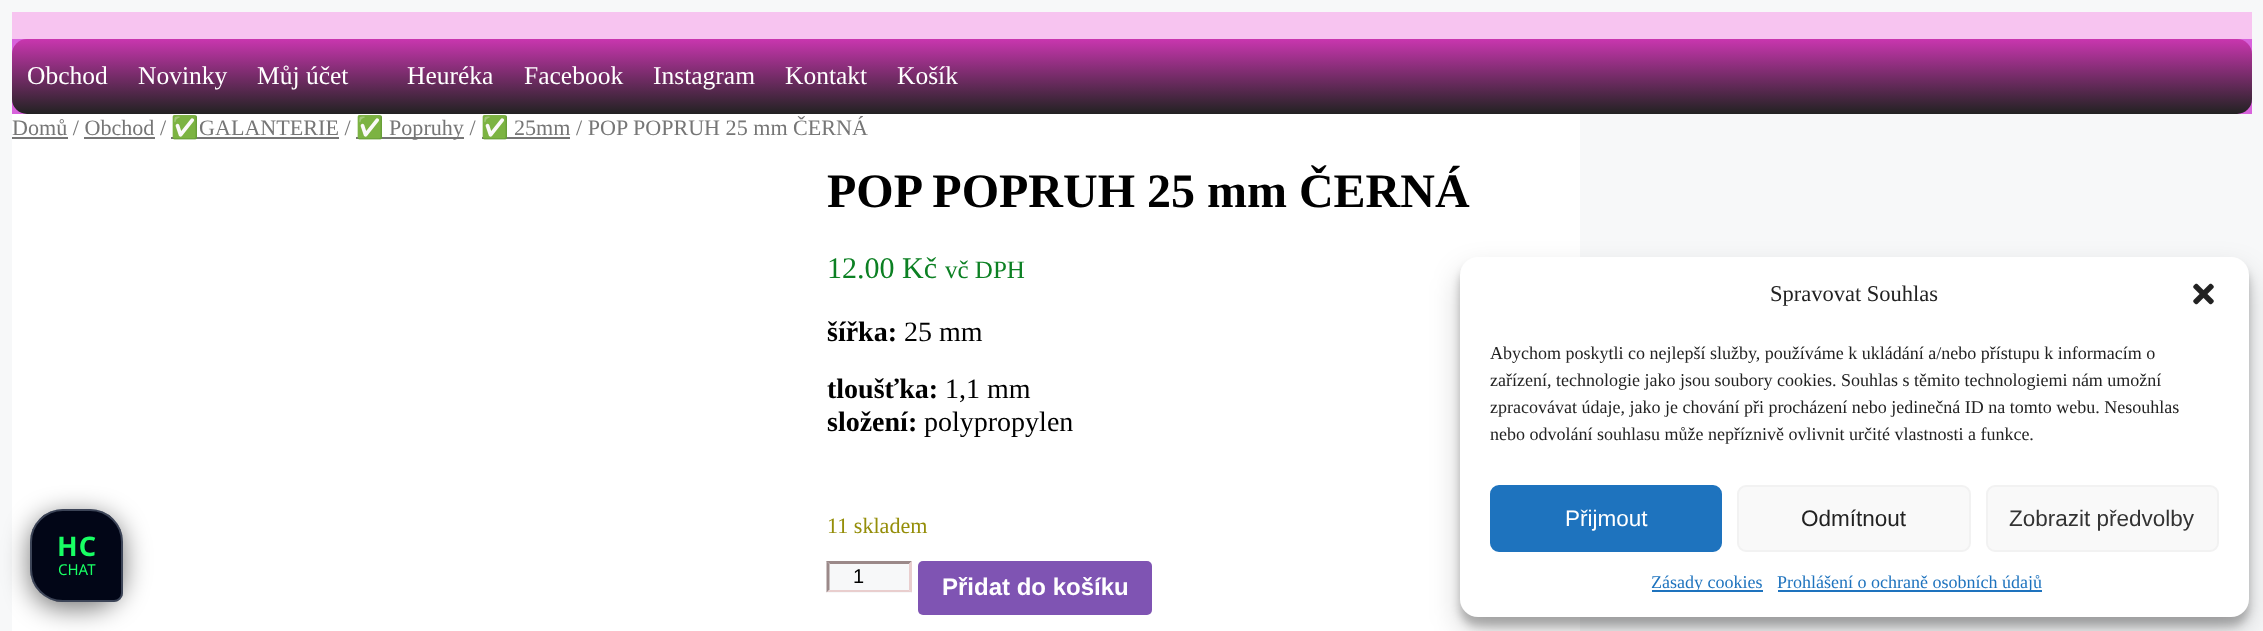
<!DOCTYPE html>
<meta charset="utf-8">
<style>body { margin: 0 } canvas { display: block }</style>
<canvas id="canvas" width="2263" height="631"></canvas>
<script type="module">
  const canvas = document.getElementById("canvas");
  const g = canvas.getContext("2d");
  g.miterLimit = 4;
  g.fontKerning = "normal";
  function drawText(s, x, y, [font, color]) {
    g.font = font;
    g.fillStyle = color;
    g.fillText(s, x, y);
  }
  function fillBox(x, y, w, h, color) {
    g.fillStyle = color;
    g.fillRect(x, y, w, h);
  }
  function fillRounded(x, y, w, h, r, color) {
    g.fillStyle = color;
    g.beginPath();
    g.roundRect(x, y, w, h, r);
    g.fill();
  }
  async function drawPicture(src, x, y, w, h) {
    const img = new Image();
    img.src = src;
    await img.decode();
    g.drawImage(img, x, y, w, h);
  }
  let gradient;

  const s1 = ["25.5px Liberation Serif", "#FFFFFF"];
  const s2 = ["22.1px Liberation Serif", "#767676"];
  const s3 = ["22.1px Noto Color Emoji", "#767676"];
  const s4 = ["bold 48px Liberation Serif", "#000000"];
  const s5 = ["30px Liberation Serif", "#0C8023"];
  const s6 = ["25px Liberation Serif", "#0C8023"];
  const s7 = ["bold 28px Liberation Serif", "#000000"];
  const s8 = ["28px Liberation Serif", "#000000"];
  const s9 = ["22.1px Liberation Serif", "#958E09"];
  const s10 = ["20px Liberation Sans", "#000000"];
  const s11 = ["bold 24px Liberation Sans", "#FFFFFF"];
  const s12 = ["22.5px Liberation Serif", "#222222"];
  const s13 = ["18px Liberation Serif", "#222222"];
  const s14 = ["22.5px Liberation Sans", "#FFFFFF"];
  const s15 = ["22.5px Liberation Sans", "#222222"];
  const s16 = ["22.5px Liberation Sans", "#333333"];
  const s17 = ["18px Liberation Serif", "#1E73BE"];
  const s18 = ["bold 27px Noto Sans", "#18FF64"];
  const s19 = ["15px Noto Sans", "#18FF64"];

  fillBox(0, 0, 2263, 631, "#F7F8F9");
  fillBox(12, 12, 2240, 27, "#F7C4F0");
  fillBox(12, 39, 2240, 75, "#D862DC");
  gradient = g.createLinearGradient(1132, 39, 1132, 114);
  gradient.addColorStop(0, "#C936AF");
  gradient.addColorStop(1, "#222222");
  g.fillStyle = gradient;
  g.beginPath();
  g.roundRect(12, 39, 2240, 75, 15);
  g.fill();
  drawText("Obchod", 27, 84, s1);
  drawText("Novinky", 138, 84, s1);
  drawText("Můj účet", 257, 84, s1);
  drawText("Heuréka", 407, 84, s1);
  drawText("Facebook", 524, 84, s1);
  drawText("Instagram", 653, 84, s1);
  drawText("Kontakt", 785, 84, s1);
  drawText("Košík", 897, 84, s1);
  fillBox(12, 114, 1568, 517, "#FFFFFF");
  drawText("Domů / Obchod /", 12, 135, s2);
  fillBox(12, 137, 56, 2, "#767676");
  fillBox(171, 137, 168, 2, "#767676");
  drawText("✅", 171, 135, s3);
  drawText("GALANTERIE /", 199, 135, s2);
  fillBox(356, 137, 108, 2, "#767676");
  drawText("✅", 356, 135, s3);
  drawText("Popruhy /", 389, 135, s2);
  fillBox(482, 137, 88, 2, "#767676");
  drawText("✅", 481, 135, s3);
  drawText("25mm / POP POPRUH 25 mm ČERNÁ", 514, 135, s2);
  fillBox(84, 137, 71, 2, "#767676");
  drawText("POP POPRUH 25 mm ČERNÁ", 827, 207, s4);
  drawText("12.00 Kč", 827, 278, s5);
  drawText("vč DPH", 945, 278, s6);
  drawText("šířka:", 827, 341, s7);
  drawText("25 mm", 904, 341, s8);
  drawText("tloušťka:", 827, 398, s7);
  drawText("1,1 mm", 945, 398, s8);
  drawText("složení:", 827, 431, s7);
  drawText("polypropylen", 924, 431, s8);
  drawText("11 skladem", 827, 533, s9);
  fillBox(827, 561, 85, 32, "#F7F8F9");
  g.fillStyle = "#9B8989";
  g.beginPath();
  g.moveTo(826, 561);
  g.lineTo(912, 561);
  g.lineTo(909, 564);
  g.lineTo(830, 564);
  g.closePath();
  g.fill();
  g.fillStyle = "#E9CECE";
  g.beginPath();
  g.moveTo(912, 561);
  g.lineTo(912, 592.5);
  g.lineTo(909, 589.5);
  g.lineTo(909, 564);
  g.closePath();
  g.fill();
  g.beginPath();
  g.moveTo(912, 592);
  g.lineTo(826, 592);
  g.lineTo(830, 590);
  g.lineTo(909, 590);
  g.closePath();
  g.fill();
  g.fillStyle = "#9B8989";
  g.beginPath();
  g.moveTo(826.5, 592.5);
  g.lineTo(826.5, 561);
  g.lineTo(829.5, 564);
  g.lineTo(829.5, 589.5);
  g.closePath();
  g.fill();
  drawText("1", 853, 583, s10);
  fillRounded(918, 561, 234, 54, 5, "#7F54B3");
  drawText("Přidat do košíku", 942, 595, s11);
  g.fillStyle = "rgba(0, 0, 0, 0.23)";
  g.filter = "blur(4.5px)";
  g.beginPath();
  g.roundRect(1460, 266, 789, 360, 18);
  g.fill();
  g.filter = "none";
  g.fillStyle = "rgba(0, 0, 0, 0.19)";
  g.filter = "blur(15px)";
  g.beginPath();
  g.roundRect(1460, 272, 789, 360, 18);
  g.fill();
  g.filter = "none";
  fillRounded(1460, 257, 789, 360, 18, "#FFFFFF");
  drawText("Spravovat Souhlas", 1770, 301, s12);
  await drawPicture("pic1.png", 2193, 283, 21, 22);
  drawText("Abychom poskytli co nejlepší služby, používáme k ukládání a/nebo přístupu k informacím o", 1490, 359, s13);
  drawText("zařízení, technologie jako jsou soubory cookies. Souhlas s těmito technologiemi nám umožní", 1490, 386, s13);
  drawText("zpracovávat údaje, jako je chování při procházení nebo jedinečná ID na tomto webu. Nesouhlas", 1490, 413, s13);
  drawText("nebo odvolání souhlasu může nepříznivě ovlivnit určité vlastnosti a funkce.", 1490, 440, s13);
  g.fillStyle = "#1E73BE";
  g.beginPath();
  g.roundRect(1491, 486, 230, 65, 8);
  g.fill();
  g.strokeStyle = "#1E73BE";
  g.lineWidth = 2;
  g.stroke();
  drawText("Přijmout", 1565, 526, s14);
  g.fillStyle = "#F9F9F9";
  g.beginPath();
  g.roundRect(1738, 486, 232, 65, 8);
  g.fill();
  g.strokeStyle = "#F2F2F2";
  g.stroke();
  drawText("Odmítnout", 1801, 526, s15);
  g.fillStyle = "#F9F9F9";
  g.beginPath();
  g.roundRect(1987, 486, 231, 65, 8);
  g.fill();
  g.stroke();
  drawText("Zobrazit předvolby", 2009, 526, s16);
  fillBox(1652, 590, 111, 2, "#1E73BE");
  drawText("Zásady cookies", 1651, 588, s17);
  fillBox(1778, 590, 264, 2, "#1E73BE");
  drawText("Prohlášení o ochraně osobních údajů", 1777, 588, s17);
  g.fillStyle = "rgba(0, 0, 0, 0.55)";
  g.filter = "blur(13.5px)";
  g.beginPath();
  g.roundRect(30, 515, 93, 93, 33);
  g.fill();
  g.filter = "none";
  g.fillStyle = "#020617";
  g.beginPath();
  g.roundRect(30, 509, 93, 93, [33, 33, 9, 33]);
  g.fill();
  g.beginPath();
  g.roundRect(31, 510, 91, 91, [32, 32, 8, 32]);
  g.strokeStyle = "rgba(148, 163, 184, 0.4)";
  g.stroke();
  g.letterSpacing = "1px";
  drawText("HC", 57, 556, s18);
  g.letterSpacing = "0px";
  drawText("CHAT", 58, 575, s19);
</script>
